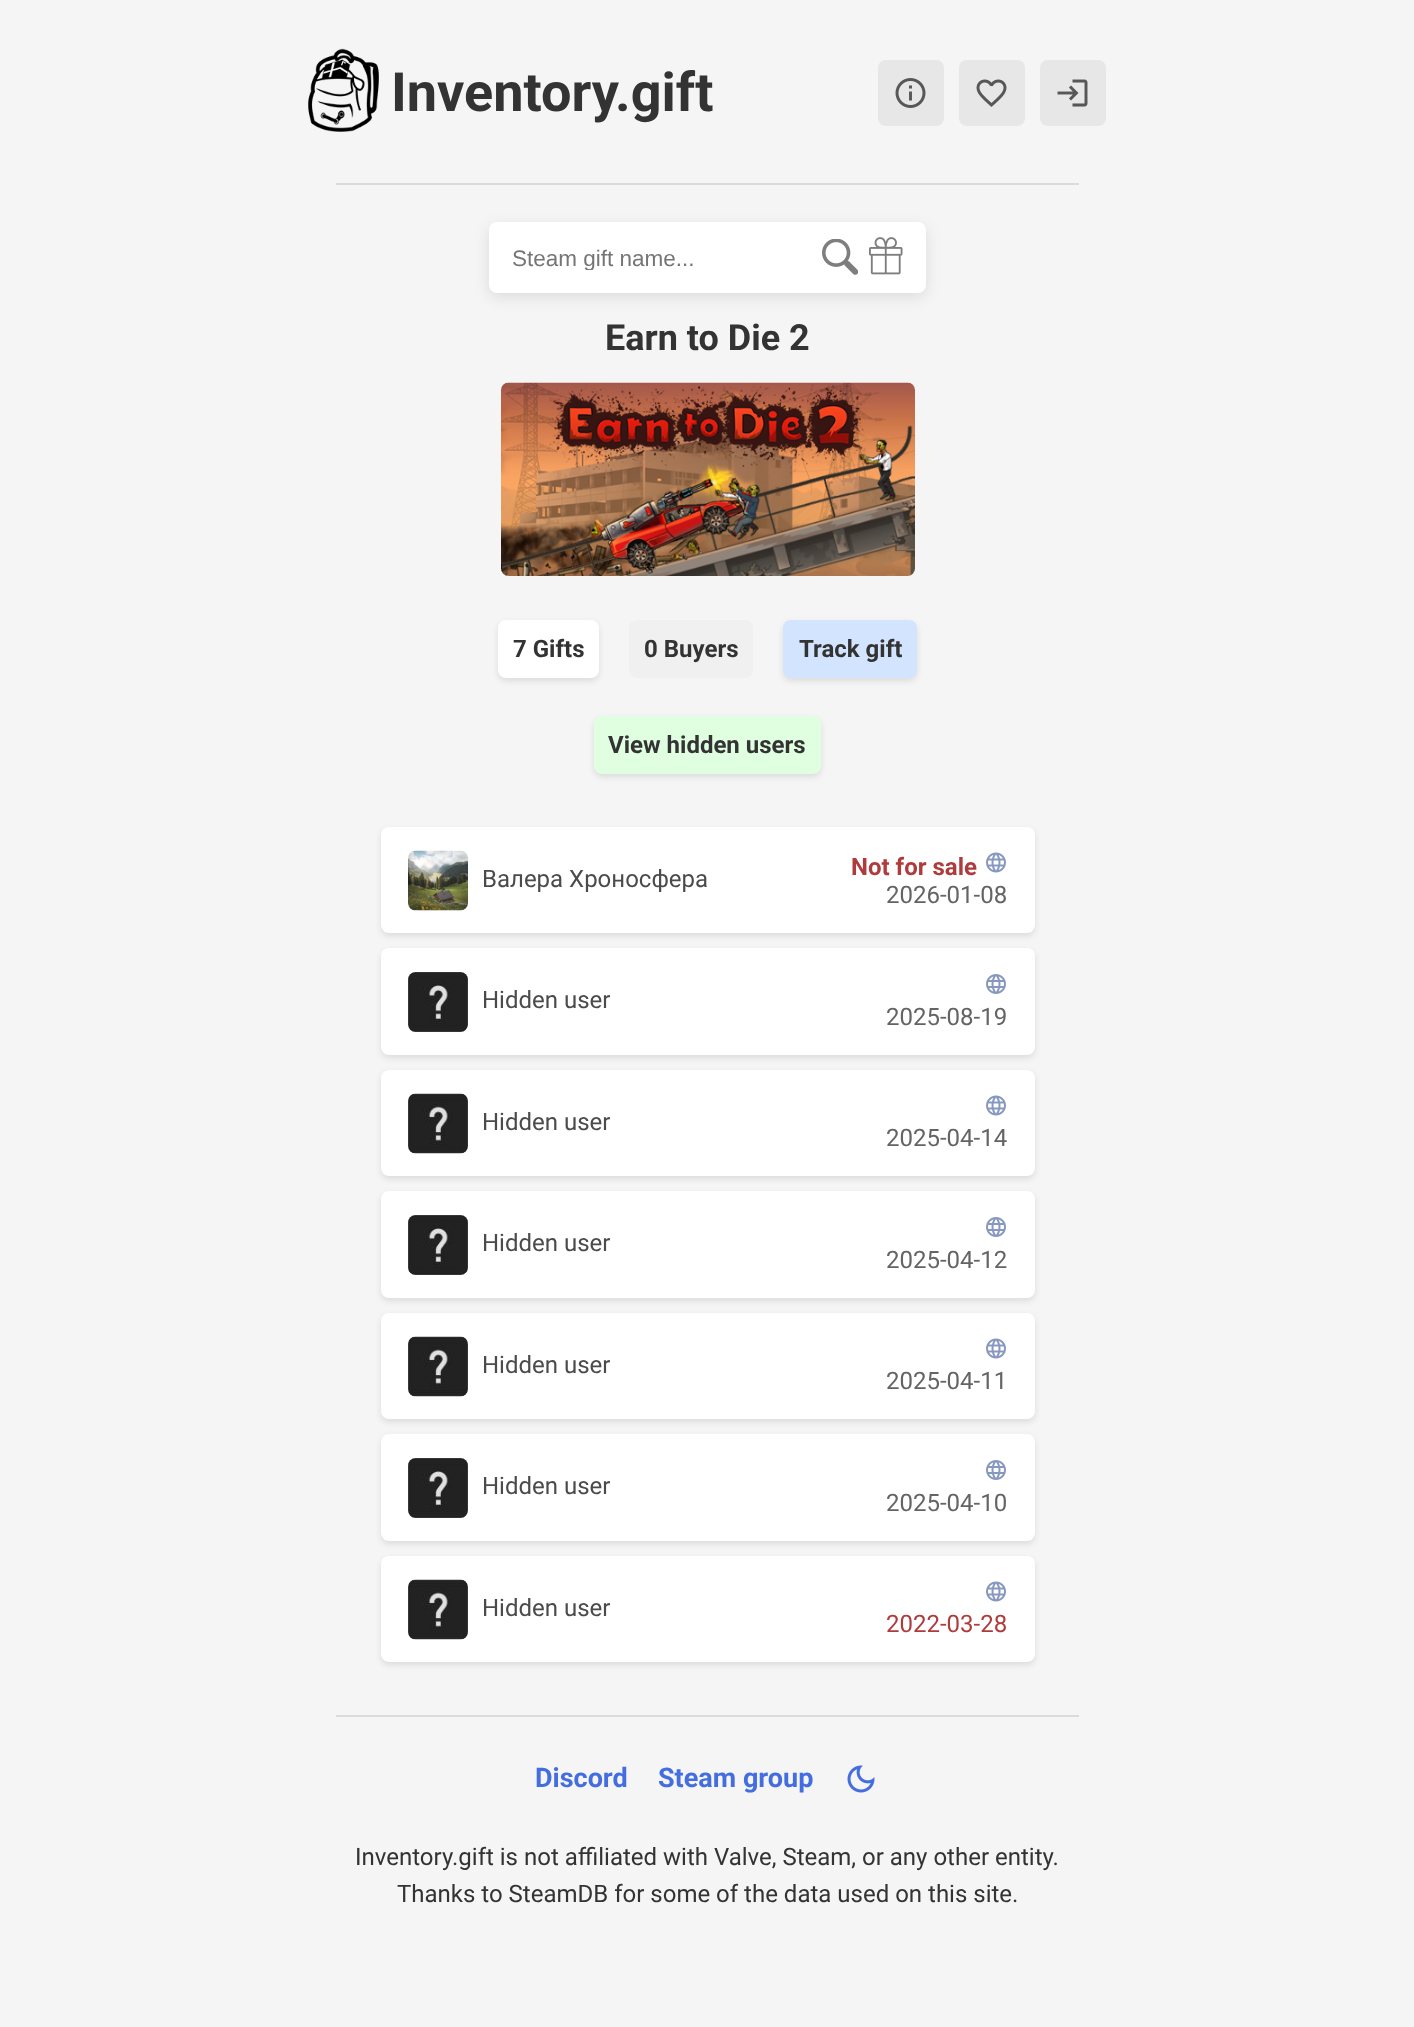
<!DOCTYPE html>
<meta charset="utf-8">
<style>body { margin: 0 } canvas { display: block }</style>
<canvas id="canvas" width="1414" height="2027"></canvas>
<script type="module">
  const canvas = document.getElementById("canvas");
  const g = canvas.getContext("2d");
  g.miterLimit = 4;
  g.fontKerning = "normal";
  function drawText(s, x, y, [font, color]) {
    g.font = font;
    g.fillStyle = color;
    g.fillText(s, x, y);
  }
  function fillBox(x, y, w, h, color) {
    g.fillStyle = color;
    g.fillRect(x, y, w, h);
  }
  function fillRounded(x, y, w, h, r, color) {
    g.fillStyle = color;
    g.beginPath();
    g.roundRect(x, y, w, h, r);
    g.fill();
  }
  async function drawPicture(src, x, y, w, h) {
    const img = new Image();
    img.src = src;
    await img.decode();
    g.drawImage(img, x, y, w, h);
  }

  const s1 = ["bold 54px Roboto", "#333333"];
  const s2 = ["22.5px Liberation Sans", "#757575"];
  const s3 = ["bold 36px Roboto", "#333333"];
  const s4 = ["bold 24px Roboto", "#333333"];
  const s5 = ["24px Roboto", "#4B4B4B"];
  const s6 = ["bold 24px Roboto", "#AF3C3C"];
  const s7 = ["24px Roboto", "#646464"];
  const s8 = ["24px Roboto", "#AF3C3C"];
  const s9 = ["bold 27px Roboto", "#446DDF"];
  const s10 = ["24px Roboto", "#333333"];

  fillBox(0, 0, 1414, 2027, "#F5F5F5");
  await drawPicture("pic1.png", 308, 48, 71, 84);
  drawText("Inventory.gift", 391, 111, s1);
  fillRounded(878, 60, 66, 66, 8, "#E7E7E7");
  await drawPicture("pic2.png", 895, 78, 31, 30);
  fillRounded(959, 60, 66, 66, 8, "#E7E7E7");
  await drawPicture("pic3.png", 976, 79, 31, 28);
  fillRounded(1040, 60, 66, 66, 8, "#E7E7E7");
  await drawPicture("pic4.png", 1057, 79, 31, 28);
  fillBox(336, 183, 743, 2, "#DBDBDB");
  g.fillStyle = "rgba(0, 0, 0, 0.1)";
  g.filter = "blur(7.5px)";
  g.beginPath();
  g.roundRect(489, 227, 437, 70, 8);
  g.fill();
  g.filter = "none";
  fillRounded(489, 222, 437, 71, 8, "#FFFFFF");
  g.save();
  g.beginPath();
  g.rect(512, 245, 298, 25);
  g.clip();
  drawText("Steam gift name...", 512, 266, s2);
  g.restore();
  await drawPicture("pic5.png", 822, 239, 36, 36);
  await drawPicture("pic6.png", 869, 237, 34, 38);
  drawText("Earn to Die 2", 605, 350, s3);
  await drawPicture("pic7.png", 501, 382, 414, 194);
  g.fillStyle = "rgba(0, 0, 0, 0.1)";
  g.filter = "blur(3px)";
  g.beginPath();
  g.roundRect(498, 623, 101, 58, 8);
  g.fill();
  g.filter = "none";
  fillRounded(498, 620, 101, 58, 8, "#FFFFFF");
  drawText("7 Gifts", 513, 657, s4);
  fillRounded(629, 620, 124, 58, 8, "#F0F0F0");
  drawText("0 Buyers", 644, 657, s4);
  g.fillStyle = "rgba(0, 0, 0, 0.1)";
  g.filter = "blur(3px)";
  g.beginPath();
  g.roundRect(783, 623, 134, 58, 8);
  g.fill();
  g.filter = "none";
  fillRounded(783, 620, 134, 58, 8, "#D2E4FF");
  drawText("Track gift", 799, 657, s4);
  g.fillStyle = "rgba(0, 0, 0, 0.1)";
  g.filter = "blur(3px)";
  g.beginPath();
  g.roundRect(594, 719, 227, 58, 8);
  g.fill();
  g.filter = "none";
  fillRounded(594, 716, 227, 58, 8, "#DFFFE0");
  drawText("View hidden users", 608, 753, s4);
  g.fillStyle = "rgba(0, 0, 0, 0.1)";
  g.filter = "blur(3px)";
  g.beginPath();
  g.roundRect(381, 830, 654, 106, 8);
  g.fill();
  g.filter = "none";
  fillRounded(381, 827, 654, 106, 8, "#FFFFFF");
  await drawPicture("pic8.png", 408, 850, 60, 61);
  drawText("Валера Хроносферa", 482, 887, s5);
  drawText("Not for sale", 851, 875, s6);
  await drawPicture("pic9.png", 986, 852, 20, 21);
  drawText("2026-01-08", 886, 903, s7);
  g.fillStyle = "rgba(0, 0, 0, 0.1)";
  g.filter = "blur(3px)";
  g.beginPath();
  g.roundRect(381, 951, 654, 107, 8);
  g.fill();
  g.filter = "none";
  fillRounded(381, 948, 654, 107, 8, "#FFFFFF");
  await drawPicture("pic10.png", 408, 972, 60, 60);
  drawText("Hidden user", 482, 1008, s5);
  await drawPicture("pic11.png", 986, 974, 20, 20);
  drawText("2025-08-19", 886, 1025, s7);
  g.fillStyle = "rgba(0, 0, 0, 0.1)";
  g.filter = "blur(3px)";
  g.beginPath();
  g.roundRect(381, 1073, 654, 106, 8);
  g.fill();
  g.filter = "none";
  fillRounded(381, 1070, 654, 106, 8, "#FFFFFF");
  await drawPicture("pic12.png", 408, 1093, 60, 61);
  drawText("Hidden user", 482, 1130, s5);
  await drawPicture("pic9.png", 986, 1095, 20, 21);
  drawText("2025-04-14", 886, 1146, s7);
  g.fillStyle = "rgba(0, 0, 0, 0.1)";
  g.filter = "blur(3px)";
  g.beginPath();
  g.roundRect(381, 1194, 654, 107, 8);
  g.fill();
  g.filter = "none";
  fillRounded(381, 1191, 654, 107, 8, "#FFFFFF");
  await drawPicture("pic13.png", 408, 1215, 60, 60);
  drawText("Hidden user", 482, 1251, s5);
  await drawPicture("pic11.png", 986, 1217, 20, 20);
  drawText("2025-04-12", 886, 1268, s7);
  g.fillStyle = "rgba(0, 0, 0, 0.1)";
  g.filter = "blur(3px)";
  g.beginPath();
  g.roundRect(381, 1316, 654, 106, 8);
  g.fill();
  g.filter = "none";
  fillRounded(381, 1313, 654, 106, 8, "#FFFFFF");
  await drawPicture("pic12.png", 408, 1336, 60, 61);
  drawText("Hidden user", 482, 1373, s5);
  await drawPicture("pic9.png", 986, 1338, 20, 21);
  drawText("2025-04-11", 886, 1389, s7);
  g.fillStyle = "rgba(0, 0, 0, 0.1)";
  g.filter = "blur(3px)";
  g.beginPath();
  g.roundRect(381, 1437, 654, 107, 8);
  g.fill();
  g.filter = "none";
  fillRounded(381, 1434, 654, 107, 8, "#FFFFFF");
  await drawPicture("pic14.png", 408, 1458, 60, 60);
  drawText("Hidden user", 482, 1494, s5);
  await drawPicture("pic11.png", 986, 1460, 20, 20);
  drawText("2025-04-10", 886, 1511, s7);
  g.fillStyle = "rgba(0, 0, 0, 0.1)";
  g.filter = "blur(3px)";
  g.beginPath();
  g.roundRect(381, 1559, 654, 106, 8);
  g.fill();
  g.filter = "none";
  fillRounded(381, 1556, 654, 106, 8, "#FFFFFF");
  await drawPicture("pic12.png", 408, 1579, 60, 61);
  drawText("Hidden user", 482, 1616, s5);
  await drawPicture("pic9.png", 986, 1581, 20, 21);
  drawText("2022-03-28", 886, 1632, s8);
  fillBox(336, 1715, 743, 2, "#DBDBDB");
  drawText("Discord", 535, 1787, s9);
  drawText("Steam group", 658, 1787, s9);
  await drawPicture("pic15.png", 847, 1765, 28, 28);
  drawText("Inventory.gift is not affiliated with Valve, Steam, or any other entity.", 355, 1865, s10);
  drawText("Thanks to SteamDB for some of the data used on this site.", 397, 1902, s10);
</script>
